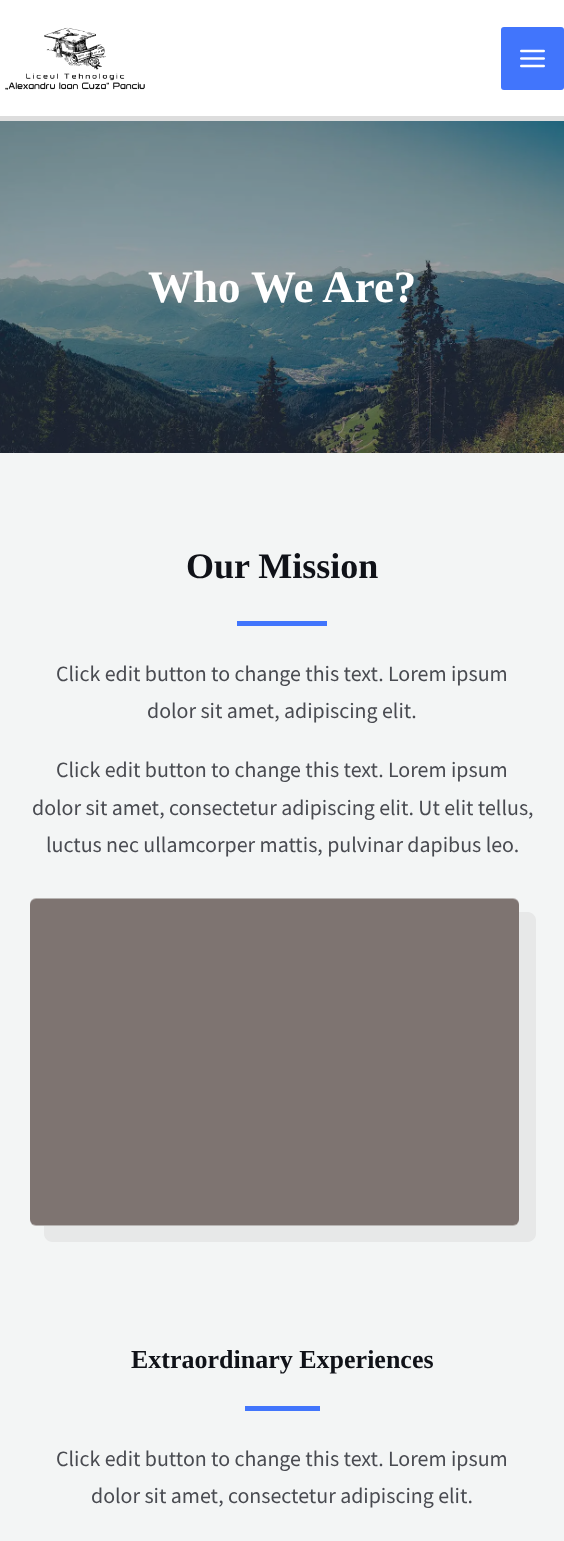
<!DOCTYPE html>
<meta charset="utf-8">
<style>body { margin: 0 } canvas { display: block }</style>
<canvas id="canvas" width="564" height="1541"></canvas>
<script type="module">
  const canvas = document.getElementById("canvas");
  const g = canvas.getContext("2d");
  g.miterLimit = 4;
  g.fontKerning = "normal";
  function drawText(s, x, y, [font, color]) {
    g.font = font;
    g.fillStyle = color;
    g.fillText(s, x, y);
  }
  function fillBox(x, y, w, h, color) {
    g.fillStyle = color;
    g.fillRect(x, y, w, h);
  }
  function fillRounded(x, y, w, h, r, color) {
    g.fillStyle = color;
    g.beginPath();
    g.roundRect(x, y, w, h, r);
    g.fill();
  }
  async function drawPicture(src, x, y, w, h) {
    const img = new Image();
    img.src = src;
    await img.decode();
    g.drawImage(img, x, y, w, h);
  }

  const s1 = ["bold 45px Liberation Serif", "#FFFFFF"];
  const s2 = ["bold 36px Liberation Serif", "#101218"];
  const s3 = ["21.9px Source Sans Pro", "#494B51"];
  const s4 = ["bold 26px Liberation Serif", "#101218"];

  fillBox(0, 0, 564, 1541, "#F3F5F5");
  fillBox(0, 0, 564, 116, "#FFFFFF");
  fillBox(0, 116, 564, 5, "#DDDDDD");
  await drawPicture("pic1.png", 5, 27, 140, 63);
  fillRounded(501, 27, 63, 63, 3, "#4175FC");
  await drawPicture("pic2.png", 520, 49, 25, 19);
  await drawPicture("pic3.png", 0, 121, 564, 332);
  drawText("Who We Are?", 148, 302, s1);
  drawText("Our Mission", 186, 578, s2);
  fillBox(237, 621, 90, 5, "#4175FC");
  drawText("Click edit button to change this text. Lorem ipsum", 56, 681, s3);
  drawText("dolor sit amet, adipiscing elit.", 147, 718, s3);
  drawText("Click edit button to change this text. Lorem ipsum", 56, 777, s3);
  drawText("dolor sit amet, consectetur adipiscing elit. Ut elit tellus,", 32, 815, s3);
  drawText("luctus nec ullamcorper mattis, pulvinar dapibus leo.", 46, 852, s3);
  g.fillStyle = "#E7E8E8";
  g.beginPath();
  g.moveTo(44, 1226);
  g.lineTo(44, 1234);
  g.bezierCurveTo(44, 1238, 48, 1242, 52, 1242);
  g.lineTo(528, 1242);
  g.bezierCurveTo(532, 1242, 536, 1238, 536, 1234);
  g.lineTo(536, 920);
  g.bezierCurveTo(536, 916, 532, 912, 528, 912);
  g.lineTo(519, 912);
  g.lineTo(519, 1220);
  g.bezierCurveTo(519, 1223, 516, 1226, 513, 1226);
  g.closePath();
  g.fill();
  await drawPicture("pic4.png", 30, 898, 489, 328);
  drawText("Extraordinary Experiences", 131, 1368, s4);
  fillBox(245, 1406, 75, 5, "#4175FC");
  drawText("Click edit button to change this text. Lorem ipsum", 56, 1466, s3);
  drawText("dolor sit amet, consectetur adipiscing elit.", 91, 1503, s3);
</script>
